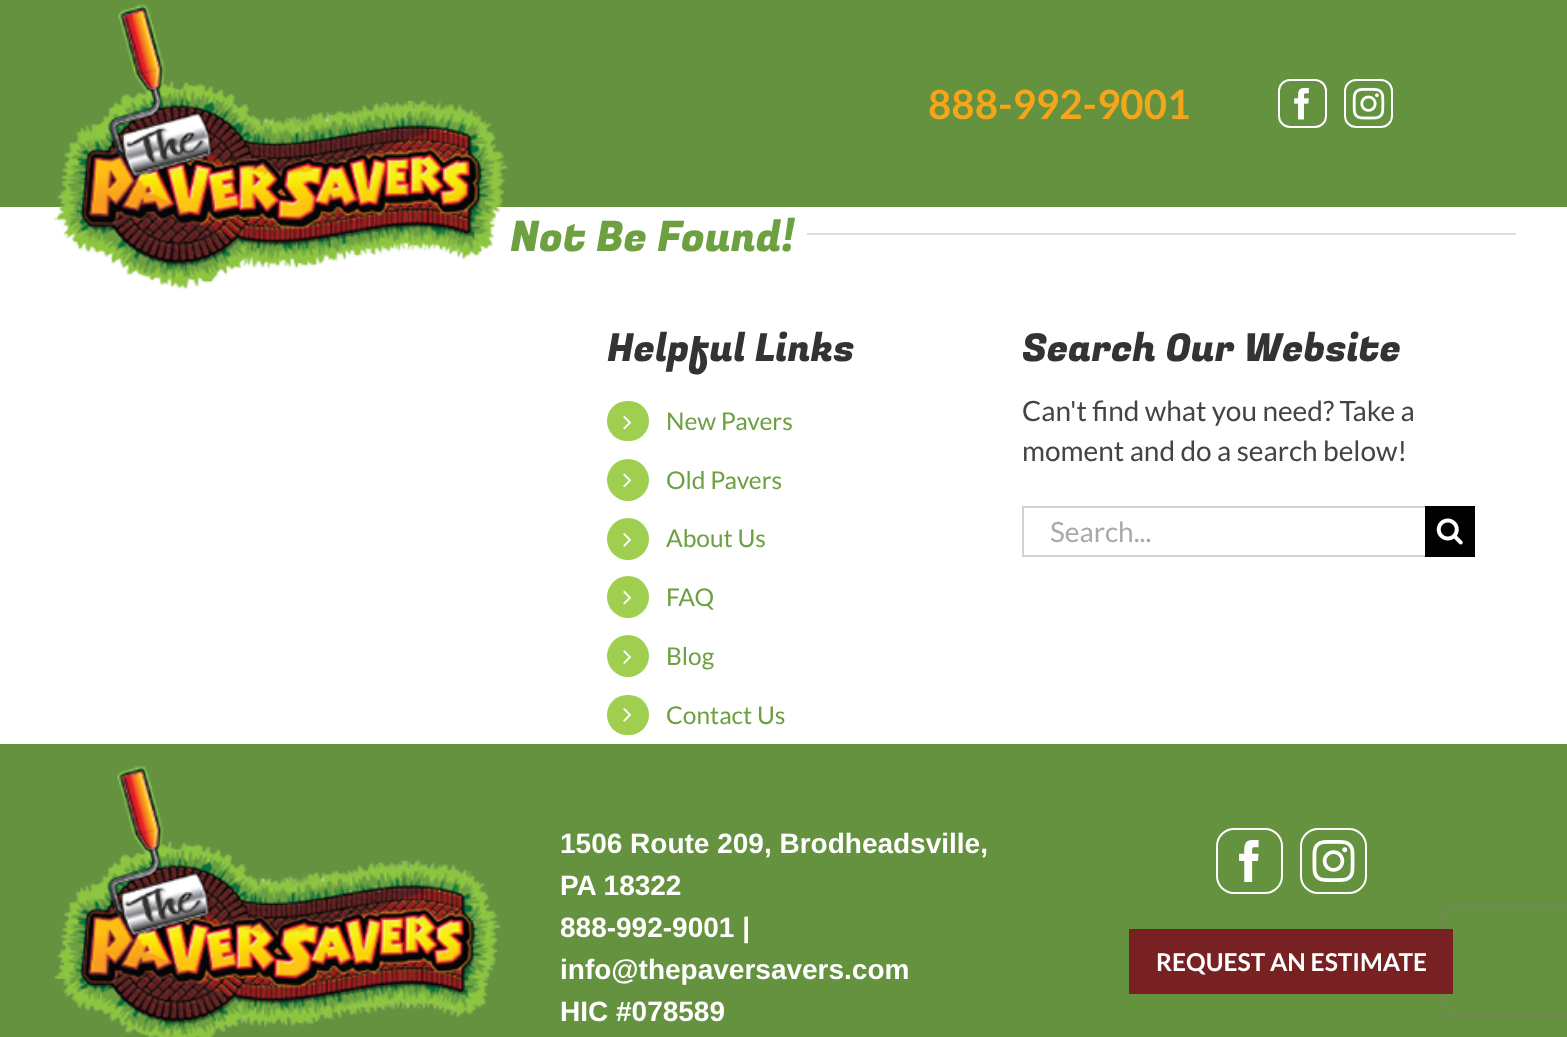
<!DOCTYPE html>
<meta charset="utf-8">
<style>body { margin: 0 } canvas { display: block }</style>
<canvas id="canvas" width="1567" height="1037"></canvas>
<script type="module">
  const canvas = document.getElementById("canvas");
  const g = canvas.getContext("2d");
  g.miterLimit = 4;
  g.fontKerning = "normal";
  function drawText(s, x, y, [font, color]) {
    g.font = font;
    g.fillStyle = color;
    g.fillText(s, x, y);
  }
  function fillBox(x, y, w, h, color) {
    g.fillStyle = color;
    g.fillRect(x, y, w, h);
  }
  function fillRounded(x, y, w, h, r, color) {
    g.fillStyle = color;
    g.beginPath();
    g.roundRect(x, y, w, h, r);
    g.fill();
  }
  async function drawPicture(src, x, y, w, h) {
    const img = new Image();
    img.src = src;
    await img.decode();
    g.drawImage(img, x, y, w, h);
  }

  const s1 = ["bold 40.25px Lato", "#F5A519"];
  const s2 = ["42px Fugaz One", "#6DA041"];
  const s3 = ["38.5px Fugaz One", "#333333"];
  const s4 = ["24.5px Lato", "#6DA041"];
  const s5 = ["28px Lato", "#444444"];
  const s6 = ["28px Lato", "#AAA9A9"];
  const s7 = ["bold 28px Liberation Sans", "#FFFFFF"];
  const s8 = ["bold 24.5px Lato", "#FFFFFF"];

  fillBox(0, 0, 1567, 1037, "#FFFFFF");
  fillBox(0, 0, 1567, 207, "#64923E");
  await drawPicture("pic1.png", 54, 4, 454, 286);
  drawText("888-992-9001", 928, 119, s1);
  g.beginPath();
  g.roundRect(1279, 80, 47, 47, 11);
  g.strokeStyle = "#FFFFFF";
  g.lineWidth = 2;
  g.stroke();
  await drawPicture("pic2.png", 1294, 87, 15, 33);
  g.beginPath();
  g.roundRect(1345, 80, 47, 47, 11);
  g.stroke();
  await drawPicture("pic3.png", 1352, 87, 33, 33);
  drawText("Not Be Found!", 510, 251, s2);
  fillBox(807, 233, 709, 2, "#E0DEDE");
  drawText("Helpful Links", 607, 361, s3);
  fillRounded(607, 401, 42, 40, 20, "#A0CE4E");
  await drawPicture("pic4.png", 623, 415, 9, 15);
  drawText("New Pavers", 666, 430, s4);
  g.fillStyle = "#A0CE4E";
  g.beginPath();
  g.arc(628, 480, 21, 0, Math.PI * 2);
  g.fill();
  await drawPicture("pic5.png", 623, 473, 9, 15);
  drawText("Old Pavers", 666, 489, s4);
  g.fillStyle = "#A0CE4E";
  g.beginPath();
  g.arc(628, 539, 21, 0, Math.PI * 2);
  g.fill();
  await drawPicture("pic6.png", 623, 533, 9, 14);
  drawText("About Us", 666, 547, s4);
  g.fillStyle = "#A0CE4E";
  g.beginPath();
  g.arc(628, 597, 21, 0, Math.PI * 2);
  g.fill();
  await drawPicture("pic4.png", 623, 590, 9, 15);
  drawText("FAQ", 666, 606, s4);
  g.fillStyle = "#A0CE4E";
  g.beginPath();
  g.arc(628, 656, 21, 0, Math.PI * 2);
  g.fill();
  await drawPicture("pic7.png", 623, 650, 9, 14);
  drawText("Blog", 666, 665, s4);
  fillRounded(607, 695, 42, 40, 20, "#A0CE4E");
  await drawPicture("pic6.png", 623, 708, 9, 14);
  drawText("Contact Us", 666, 724, s4);
  drawText("Search Our Website", 1022, 361, s3);
  drawText("Can't find what you need? Take a", 1022, 421, s5);
  drawText("moment and do a search below!", 1022, 461, s5);
  fillBox(1022, 506, 403, 2, "#D2D2D2");
  fillBox(1022, 555, 403, 2, "#D2D2D2");
  fillBox(1022, 506, 2, 51, "#D2D2D2");
  drawText("Search...", 1050, 542, s6);
  fillBox(1425, 506, 50, 51, "#000000");
  await drawPicture("pic8.png", 1436, 518, 27, 27);
  fillBox(0, 744, 1567, 293, "#64923E");
  await drawPicture("pic9.png", 54, 766, 447, 271);
  drawText("1506 Route 209, Brodheadsville,", 560, 853, s7);
  drawText("PA 18322", 560, 895, s7);
  drawText("888-992-9001 |", 560, 937, s7);
  drawText("info@thepaversavers.com", 560, 979, s7);
  drawText("HIC #078589", 560, 1021, s7);
  g.beginPath();
  g.roundRect(1217, 829, 65, 64, 17);
  g.stroke();
  await drawPicture("pic10.png", 1239, 840, 20, 42);
  g.beginPath();
  g.roundRect(1301, 829, 65, 64, 17);
  g.stroke();
  await drawPicture("pic11.png", 1312, 840, 43, 42);
  g.save();
  g.beginPath();
  g.moveTo(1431, 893);
  g.lineTo(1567, 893);
  g.lineTo(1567, 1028);
  g.lineTo(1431, 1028);
  g.closePath();
  g.moveTo(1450, 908);
  g.lineTo(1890, 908);
  g.bezierCurveTo(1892, 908, 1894, 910, 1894, 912);
  g.lineTo(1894, 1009);
  g.bezierCurveTo(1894, 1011, 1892, 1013, 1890, 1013);
  g.lineTo(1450, 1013);
  g.bezierCurveTo(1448, 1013, 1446, 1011, 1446, 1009);
  g.lineTo(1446, 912);
  g.bezierCurveTo(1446, 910, 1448, 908, 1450, 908);
  g.closePath();
  g.clip("evenodd");
  g.fillStyle = "#808080";
  g.filter = "blur(4.5px)";
  g.beginPath();
  g.roundRect(1446, 908, 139, 105, 4);
  g.fill();
  g.filter = "none";
  g.restore();
  fillBox(1129, 929, 324, 65, "#772122");
  drawText("REQUEST AN ESTIMATE", 1156, 971, s8);
</script>
